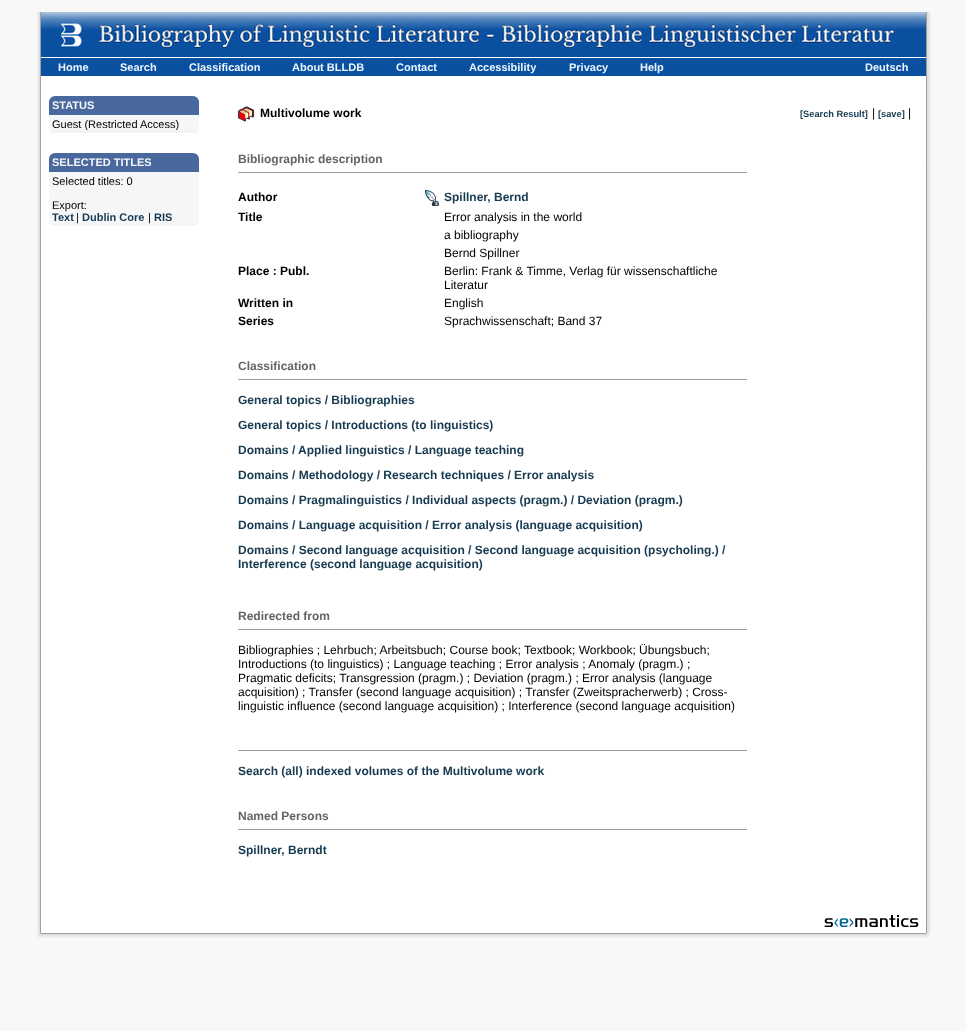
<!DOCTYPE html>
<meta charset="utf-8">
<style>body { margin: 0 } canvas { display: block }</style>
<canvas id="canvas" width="966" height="1031"></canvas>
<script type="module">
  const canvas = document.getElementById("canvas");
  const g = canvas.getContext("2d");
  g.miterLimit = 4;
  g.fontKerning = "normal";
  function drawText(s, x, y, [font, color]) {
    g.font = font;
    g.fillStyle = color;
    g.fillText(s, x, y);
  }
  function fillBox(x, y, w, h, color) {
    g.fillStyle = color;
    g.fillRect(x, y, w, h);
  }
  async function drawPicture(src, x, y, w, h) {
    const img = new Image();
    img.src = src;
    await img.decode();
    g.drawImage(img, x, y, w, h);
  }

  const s1 = ["bold 11px Liberation Sans", "#EBF5FF"];
  const s2 = ["bold 11px Liberation Sans", "#F5F6F7"];
  const s3 = ["11px Liberation Sans", "#000000"];
  const s4 = ["bold 11px Liberation Sans", "#173A51"];
  const s5 = ["bold 12px Liberation Sans", "#000000"];
  const s6 = ["bold 9.25px Liberation Sans", "#173A51"];
  const s7 = ["12px Liberation Sans", "#000000"];
  const s8 = ["bold 12px Liberation Sans", "#646464"];
  const s9 = ["bold 12px Liberation Sans", "#173A51"];

  fillBox(0, 0, 966, 1031, "#F8F8F8");
  await drawPicture("pic1.png", 37, 12, 4, 921);
  await drawPicture("pic2.png", 41, 12, 885, 45);
  fillBox(41, 58, 885, 18, "#0A50A1");
  fillBox(41, 57, 885, 1, "#FFFFFF");
  drawText("Home", 58, 71, s1);
  drawText("Search", 120, 71, s1);
  drawText("Classification", 189, 71, s1);
  drawText("About BLLDB", 292, 71, s1);
  drawText("Contact", 396, 71, s1);
  drawText("Accessibility", 469, 71, s1);
  drawText("Privacy", 569, 71, s1);
  drawText("Help", 640, 71, s1);
  drawText("Deutsch", 865, 71, s1);
  fillBox(41, 76, 885, 857, "#FFFFFF");
  g.fillStyle = "#48689E";
  g.beginPath();
  g.roundRect(49, 96, 150, 19, [6, 6, 0, 0]);
  g.fill();
  drawText("STATUS", 52, 109, s2);
  fillBox(49, 115, 150, 15, "#F5F6F7");
  await drawPicture("pic3.png", 49, 130, 150, 3);
  g.save();
  g.beginPath();
  g.rect(49, 118, 150, 12);
  g.clip();
  drawText("Guest (Restricted Access)", 52, 128, s3);
  g.restore();
  g.fillStyle = "#48689E";
  g.beginPath();
  g.roundRect(49, 153, 150, 19, [6, 6, 0, 0]);
  g.fill();
  drawText("SELECTED TITLES", 52, 166, s2);
  fillBox(49, 172, 150, 51, "#F5F6F7");
  await drawPicture("pic3.png", 49, 223, 150, 3);
  drawText("Selected titles: 0", 52, 185, s3);
  drawText("Export:", 52, 209, s3);
  drawText("Text", 52, 221, s4);
  drawText("|", 76, 221, s3);
  drawText("Dublin Core", 82, 221, s4);
  drawText("|", 148, 221, s3);
  drawText("RIS", 154, 221, s4);
  await drawPicture("pic4.png", 238, 106, 16, 16);
  drawText("Multivolume work", 260, 117, s5);
  drawText("[Search Result]", 800, 117, s6);
  drawText("|", 872, 117, s7);
  drawText("[save]", 878, 117, s6);
  drawText("|", 908, 117, s7);
  drawText("Bibliographic description", 238, 163, s8);
  fillBox(238, 172, 509, 1, "#9C9E9C");
  drawText("Author", 238, 201, s5);
  await drawPicture("pic5.png", 425, 190, 14, 16);
  drawText("Spillner, Bernd", 444, 201, s9);
  drawText("Title", 238, 221, s5);
  drawText("Error analysis in the world", 444, 221, s7);
  drawText("a bibliography", 444, 239, s7);
  drawText("Bernd Spillner", 444, 257, s7);
  drawText("Place : Publ.", 238, 275, s5);
  drawText("Berlin: Frank & Timme, Verlag für wissenschaftliche", 444, 275, s7);
  drawText("Literatur", 444, 289, s7);
  drawText("Written in", 238, 307, s5);
  drawText("English", 444, 307, s7);
  drawText("Series", 238, 325, s5);
  drawText("Sprachwissenschaft; Band 37", 444, 325, s7);
  drawText("Classification", 238, 370, s8);
  fillBox(238, 379, 509, 1, "#9C9E9C");
  drawText("General topics / Bibliographies", 238, 404, s9);
  drawText("General topics / Introductions (to linguistics)", 238, 429, s9);
  drawText("Domains /", 238, 454, s9);
  drawText("Applied linguistics / Language teaching", 298, 454, s9);
  drawText("Domains / Methodology / Research techniques / Error analysis", 238, 479, s9);
  drawText("Domains / Pragmalinguistics / Individual aspects (pragm.) / Deviation (pragm.)", 238, 504, s9);
  drawText("Domains / Language acquisition / Error analysis (language acquisition)", 238, 529, s9);
  drawText("Domains / Second language acquisition / Second language acquisition (psycholing.) /", 238, 554, s9);
  drawText("Interference (second language acquisition)", 238, 568, s9);
  drawText("Redirected from", 238, 620, s8);
  fillBox(238, 629, 509, 1, "#9C9E9C");
  drawText("Bibliographies ; Lehrbuch; Arbeitsbuch; Course book; Textbook; Workbook; Übungsbuch;", 238, 654, s7);
  drawText("Introductions (to linguistics) ; Language teaching ; Error analysis ; Anomaly (pragm.) ;", 238, 668, s7);
  drawText("Pragmatic deficits; Transgression (pragm.) ; Deviation (pragm.) ; Error analysis (language", 238, 682, s7);
  drawText("acquisition) ; Transfer (second language acquisition) ; Transfer (Zweitspracherwerb) ; Cross-", 238, 696, s7);
  drawText("linguistic influence (second language acquisition) ; Interference (second language acquisition)", 238, 710, s7);
  fillBox(238, 750, 509, 1, "#9C9E9C");
  drawText("Search (all) indexed volumes of the Multivolume work", 238, 775, s9);
  drawText("Named Persons", 238, 820, s8);
  fillBox(238, 829, 509, 1, "#9C9E9C");
  drawText("Spillner, Berndt", 238, 854, s9);
  await drawPicture("pic6.png", 824, 915, 95, 12);
  await drawPicture("pic7.png", 926, 12, 5, 921);
  await drawPicture("pic8.png", 37, 933, 4, 5);
  await drawPicture("pic9.png", 41, 933, 885, 5);
  await drawPicture("pic10.png", 926, 933, 4, 5);
</script>
